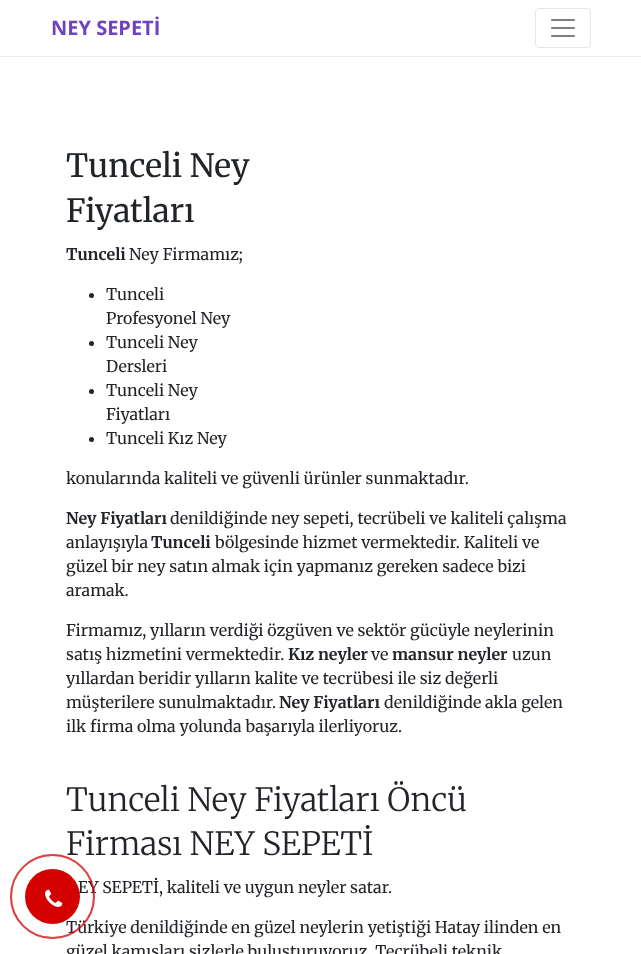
<!DOCTYPE html>
<meta charset="utf-8">
<style>body { margin: 0 } canvas { display: block }</style>
<canvas id="canvas" width="641" height="954"></canvas>
<script type="module">
  const canvas = document.getElementById("canvas");
  const g = canvas.getContext("2d");
  g.miterLimit = 4;
  g.fontKerning = "normal";
  function drawText(s, x, y, [font, color]) {
    g.font = font;
    g.fillStyle = color;
    g.fillText(s, x, y);
  }
  function fillBox(x, y, w, h, color) {
    g.fillStyle = color;
    g.fillRect(x, y, w, h);
  }
  async function drawPicture(src, x, y, w, h) {
    const img = new Image();
    img.src = src;
    await img.decode();
    g.drawImage(img, x, y, w, h);
  }

  const s1 = ["bold 20px Open Sans", "#6F42C1"];
  const s2 = ["300 32px Merriweather", "#212529"];
  const s3 = ["16px Merriweather", "#212529"];
  const s4 = ["32px Merriweather", "#212529"];
  const s5 = ["bold 16px Merriweather", "#212529"];

  fillBox(0, 0, 641, 954, "#FFFFFF");
  fillBox(0, 56, 641, 1, "#E9E9EA");
  drawText("NEY SEPETİ", 51, 35, s1);
  g.beginPath();
  g.roundRect(535.5, 8.5, 55, 39, 3.5);
  g.strokeStyle = "#E6E6E6";
  g.stroke();
  await drawPicture("pic1.png", 551, 19, 24, 18);
  drawText("Firması NEY SEPETİ", 66, 855, s2);
  drawText("EY SEPETİ, kaliteli ve uygun neyler satar.", 78, 893, s3);
  drawText("Türkiye denildiğinde en güzel neylerin yetiştiği Hatay ilinden en", 66, 933, s3);
  g.beginPath();
  g.arc(52.5, 896.5, 41.5, 0, Math.PI * 2);
  g.strokeStyle = "rgba(213, 0, 0, 0.5)";
  g.lineWidth = 2;
  g.stroke();
  drawText("Tunceli Ney", 66, 177, s4);
  drawText("Fiyatları", 66, 222, s4);
  drawText("Tunceli", 66, 260, s5);
  drawText("Ney Firmamız;", 129, 260, s3);
  g.beginPath();
  g.arc(91.5, 295.5, 2.5, 0, Math.PI * 2);
  g.fill();
  drawText("Tunceli", 106, 300, s3);
  drawText("Profesyonel Ney", 106, 324, s3);
  g.beginPath();
  g.arc(91.5, 343.5, 2.5, 0, Math.PI * 2);
  g.fill();
  drawText("Tunceli Ney", 106, 348, s3);
  drawText("Dersleri", 106, 372, s3);
  g.beginPath();
  g.arc(91.5, 391.5, 2.5, 0, Math.PI * 2);
  g.fill();
  drawText("Tunceli Ney", 106, 396, s3);
  drawText("Fiyatları", 106, 420, s3);
  g.beginPath();
  g.arc(91.5, 439.5, 2.5, 0, Math.PI * 2);
  g.fill();
  drawText("Tunceli Kız Ney", 106, 444, s3);
  drawText("konularında kaliteli ve güvenli ürünler sunmaktadır.", 66, 484, s3);
  drawText("Ney Fiyatları", 66, 524, s5);
  drawText("denildiğinde ney sepeti, tecrübeli ve kaliteli çalışma", 170, 524, s3);
  drawText("anlayışıyla", 66, 548, s3);
  drawText("Tunceli", 151, 548, s5);
  drawText("bölgesinde hizmet vermektedir. Kaliteli ve", 215, 548, s3);
  drawText("güzel bir ney satın almak için yapmanız gereken sadece bizi", 66, 572, s3);
  drawText("aramak.", 66, 596, s3);
  drawText("Firmamız, yılların verdiği özgüven ve sektör gücüyle neylerinin", 66, 636, s3);
  drawText("satış hizmetini vermektedir.", 66, 660, s3);
  drawText("Kız neyler", 288, 660, s5);
  drawText("ve", 371, 660, s3);
  drawText("mansur neyler", 392, 660, s5);
  drawText("uzun", 512, 660, s3);
  drawText("yıllardan beridir yılların kalite ve tecrübesi ile siz değerli", 66, 684, s3);
  drawText("müşterilere sunulmaktadır.", 66, 708, s3);
  drawText("Ney Fiyatları", 279, 708, s5);
  drawText("denildiğinde akla gelen", 384, 708, s3);
  drawText("ilk firma olma yolunda başarıyla ilerliyoruz.", 66, 732, s3);
  drawText("Tunceli Ney Fiyatları Öncü", 66, 811, s2);
  drawText("güzel kamışları sizlerle buluşturuyoruz. Tecrübeli teknik", 66, 957, s3);
  g.beginPath();
  g.arc(52.5, 896.5, 41.5, 0, Math.PI * 2);
  g.stroke();
  g.fillStyle = "#D50000";
  g.beginPath();
  g.arc(52.5, 896.5, 27.5, 0, Math.PI * 2);
  g.fill();
  await drawPicture("pic2.png", 45, 889, 18, 18);
</script>
